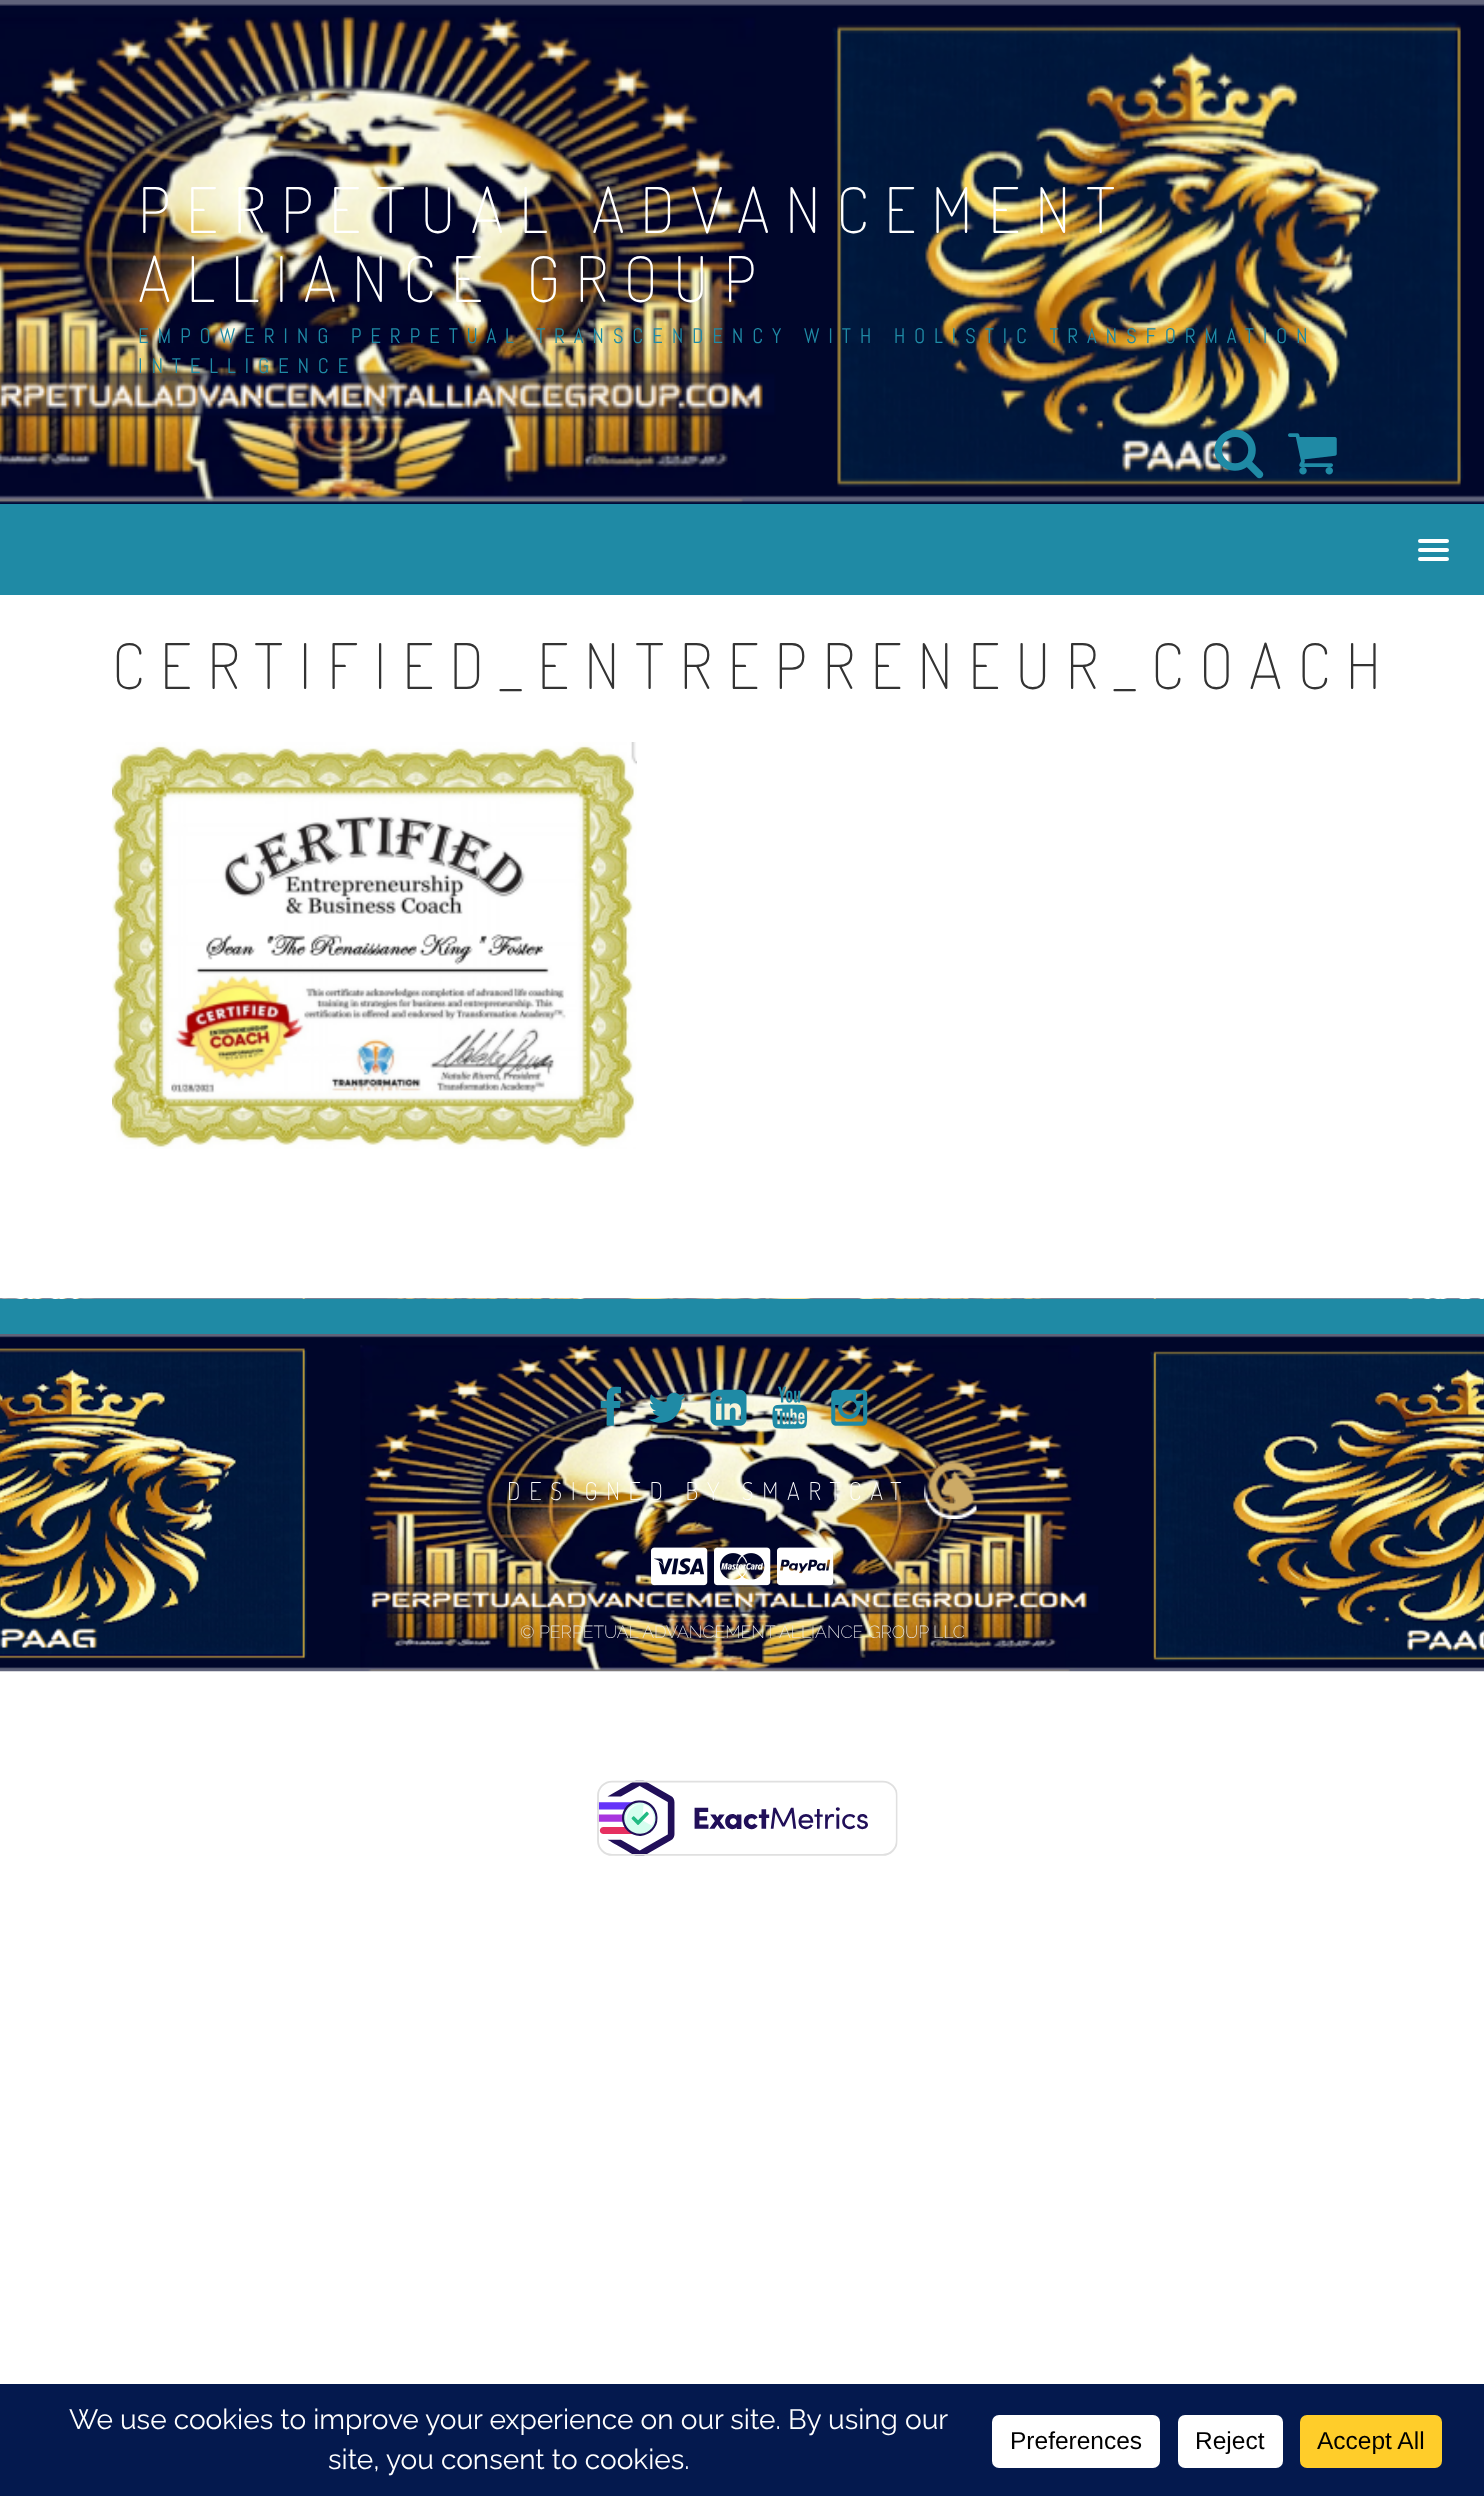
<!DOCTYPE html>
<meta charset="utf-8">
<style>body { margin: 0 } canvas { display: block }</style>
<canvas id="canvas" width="1484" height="2496"></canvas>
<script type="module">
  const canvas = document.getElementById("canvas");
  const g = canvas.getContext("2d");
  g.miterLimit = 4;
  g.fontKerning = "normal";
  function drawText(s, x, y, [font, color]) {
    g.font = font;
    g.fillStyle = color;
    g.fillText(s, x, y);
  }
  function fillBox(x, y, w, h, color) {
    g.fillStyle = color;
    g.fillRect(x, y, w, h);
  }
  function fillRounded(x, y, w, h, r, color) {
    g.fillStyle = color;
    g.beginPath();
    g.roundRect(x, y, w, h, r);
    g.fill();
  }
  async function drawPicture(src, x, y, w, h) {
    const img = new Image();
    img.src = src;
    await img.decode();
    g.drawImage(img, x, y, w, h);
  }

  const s1 = ["200 63px Dosis", "#FFFFFF"];
  const s2 = ["21px Abel", "#1F8AA5"];
  const s3 = ["200 63px Dosis", "#333333"];
  const s4 = ["200 24.5px Dosis", "#FFFFFF"];
  const s5 = ["200 17.5px Raleway", "#EEEEEE"];
  const s6 = ["28px Raleway", "#FFFFFF"];
  const s7 = ["24.5px Liberation Sans", "#000000"];

  fillBox(0, 0, 1484, 2496, "#FFFFFF");
  await drawPicture("pic1.png", 0, 0, 1484, 504);
  g.letterSpacing = "15.75px";
  drawText("PERPETUAL ADVANCEMENT", 138, 233, s1);
  drawText("ALLIANCE GROUP", 138, 302, s1);
  g.letterSpacing = "8.75px";
  drawText("EMPOWERING PERPETUAL TRANSCENDENCY WITH HOLISTIC TRANSFORMATION", 138, 343, s2);
  drawText("INTELLIGENCE", 138, 373, s2);
  await drawPicture("pic2.png", 1214, 429, 50, 50);
  await drawPicture("pic3.png", 1288, 433, 49, 42);
  fillBox(0, 504, 1484, 91, "#1F8AA5");
  fillRounded(1418, 539, 31, 4, 2, "#FFFFFF");
  fillRounded(1418, 548, 31, 4, 2, "#FFFFFF");
  fillRounded(1418, 557, 31, 4, 2, "#FFFFFF");
  g.letterSpacing = "15.75px";
  drawText("CERTIFIED_ENTREPRENEUR_COACH", 112, 689, s3);
  await drawPicture("pic4.png", 112, 742, 525, 407);
  await drawPicture("pic5.png", 0, 1298, 1484, 374);
  fillBox(0, 1299, 1484, 35, "#1F8AA5");
  await drawPicture("pic6.png", 600, 1386, 21, 40);
  await drawPicture("pic7.png", 648, 1392, 38, 31);
  await drawPicture("pic8.png", 710, 1389, 37, 37);
  await drawPicture("pic9.png", 772, 1386, 36, 43);
  await drawPicture("pic10.png", 831, 1389, 37, 37);
  g.letterSpacing = "8.75px";
  drawText("DESIGNED BY SMARTCAT", 507, 1500, s4);
  await drawPicture("pic11.png", 924, 1461, 53, 58);
  await drawPicture("pic12.png", 651, 1547, 57, 39);
  await drawPicture("pic13.png", 714, 1547, 57, 39);
  await drawPicture("pic14.png", 777, 1547, 57, 39);
  g.letterSpacing = "0px";
  drawText("© PERPETUAL ADVANCEMENT ALLIANCE GROUP LLC", 520, 1638, s5);
  await drawPicture("pic15.png", 597, 1780, 301, 76);
  fillBox(0, 2384, 1484, 112, "#04194E");
  drawText("We use cookies to improve your experience on our site. By using our", 69, 2429, s6);
  drawText("site, you consent to cookies.", 328, 2469, s6);
  fillRounded(992, 2415, 168, 53, 7, "#FFFFFF");
  drawText("Preferences", 1010, 2449, s7);
  fillRounded(1178, 2415, 105, 53, 7, "#FFFFFF");
  drawText("Reject", 1195, 2449, s7);
  fillRounded(1300, 2415, 142, 53, 7, "#FFCD2A");
  drawText("Accept All", 1317, 2449, s7);
</script>
